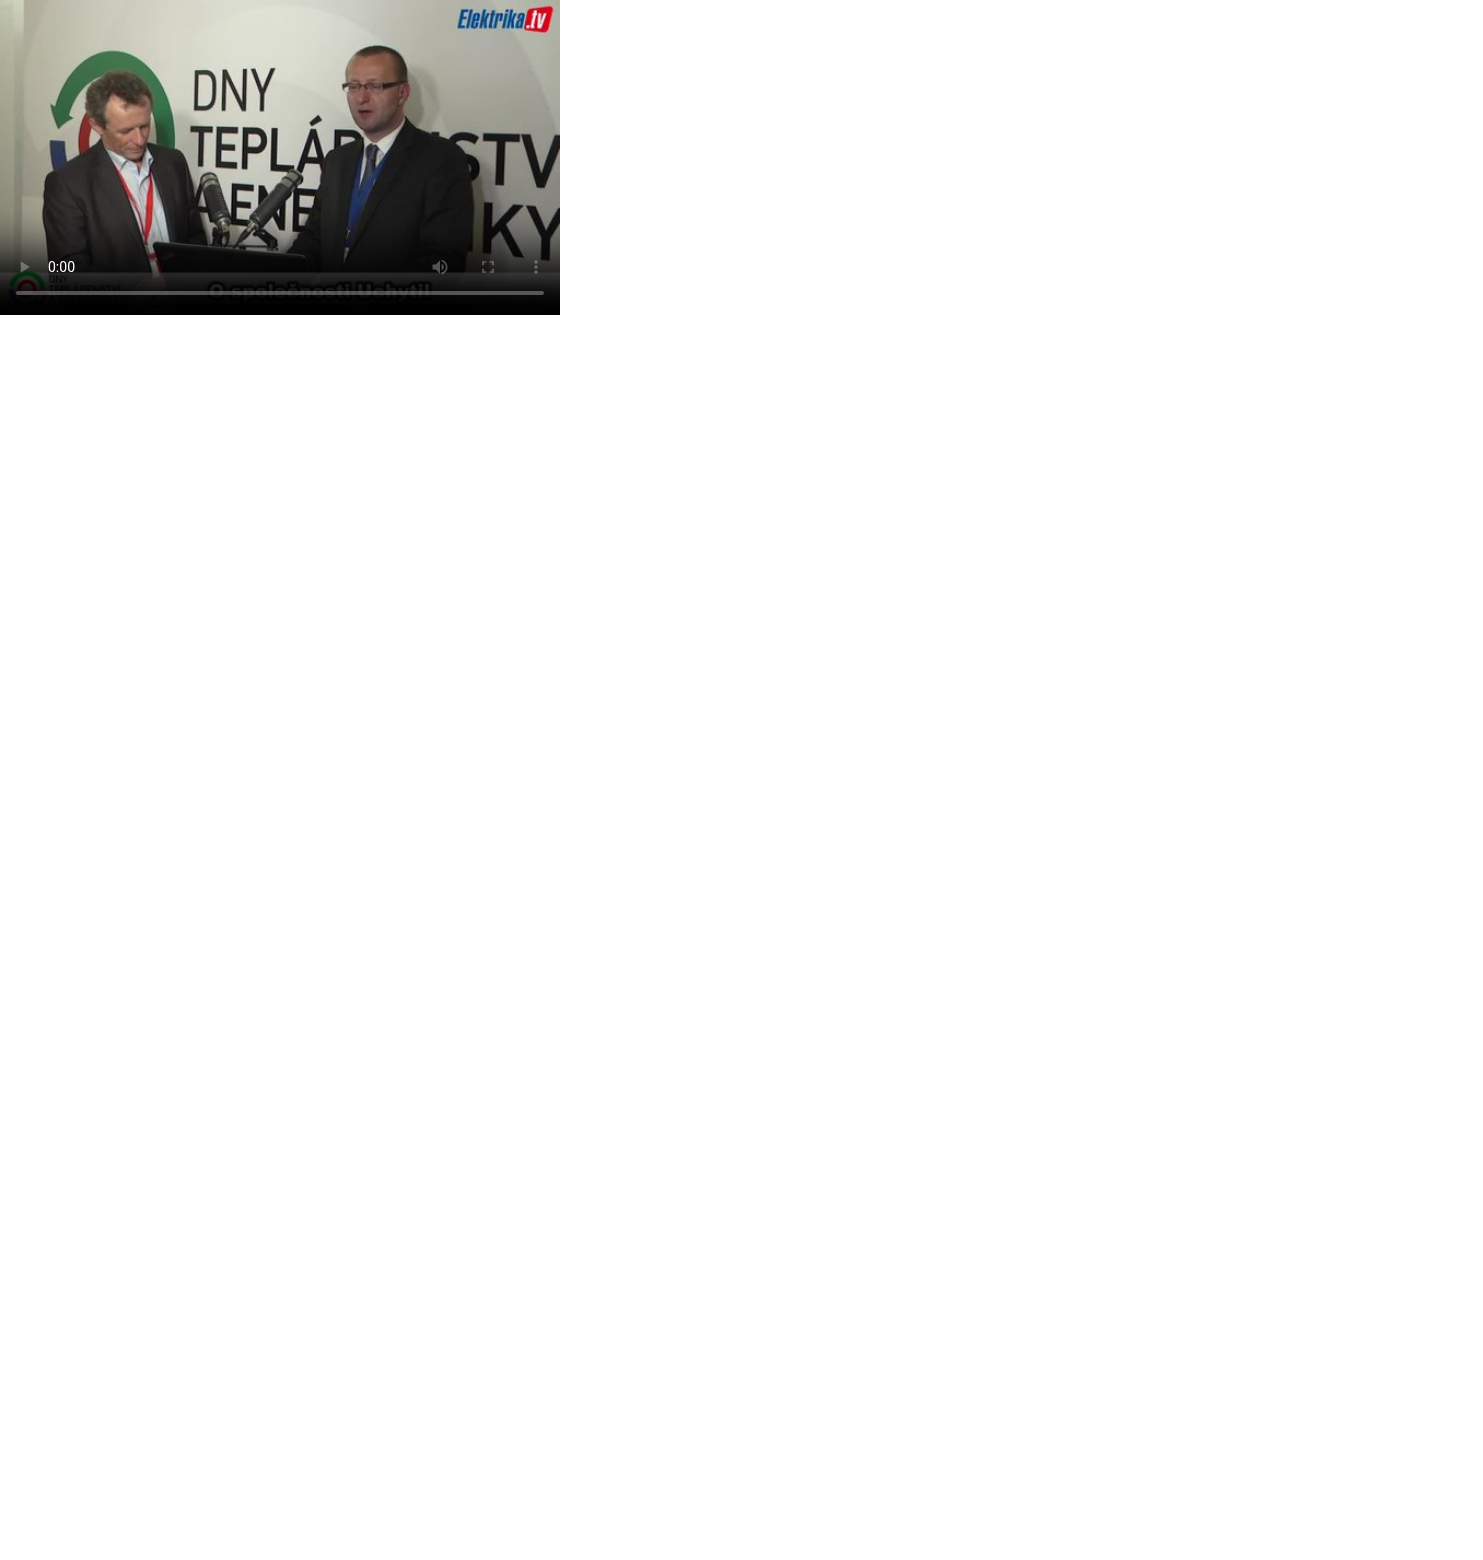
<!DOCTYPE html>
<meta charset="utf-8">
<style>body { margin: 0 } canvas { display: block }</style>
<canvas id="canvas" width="1483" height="1560"></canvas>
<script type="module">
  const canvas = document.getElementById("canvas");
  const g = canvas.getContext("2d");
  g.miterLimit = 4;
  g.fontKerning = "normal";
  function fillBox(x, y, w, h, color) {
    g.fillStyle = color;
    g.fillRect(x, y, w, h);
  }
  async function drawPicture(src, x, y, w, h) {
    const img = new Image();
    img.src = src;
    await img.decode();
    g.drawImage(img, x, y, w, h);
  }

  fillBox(0, 0, 1483, 1560, "#FFFFFF");
  await drawPicture("pic1.png", 0, 0, 560, 315);
</script>
